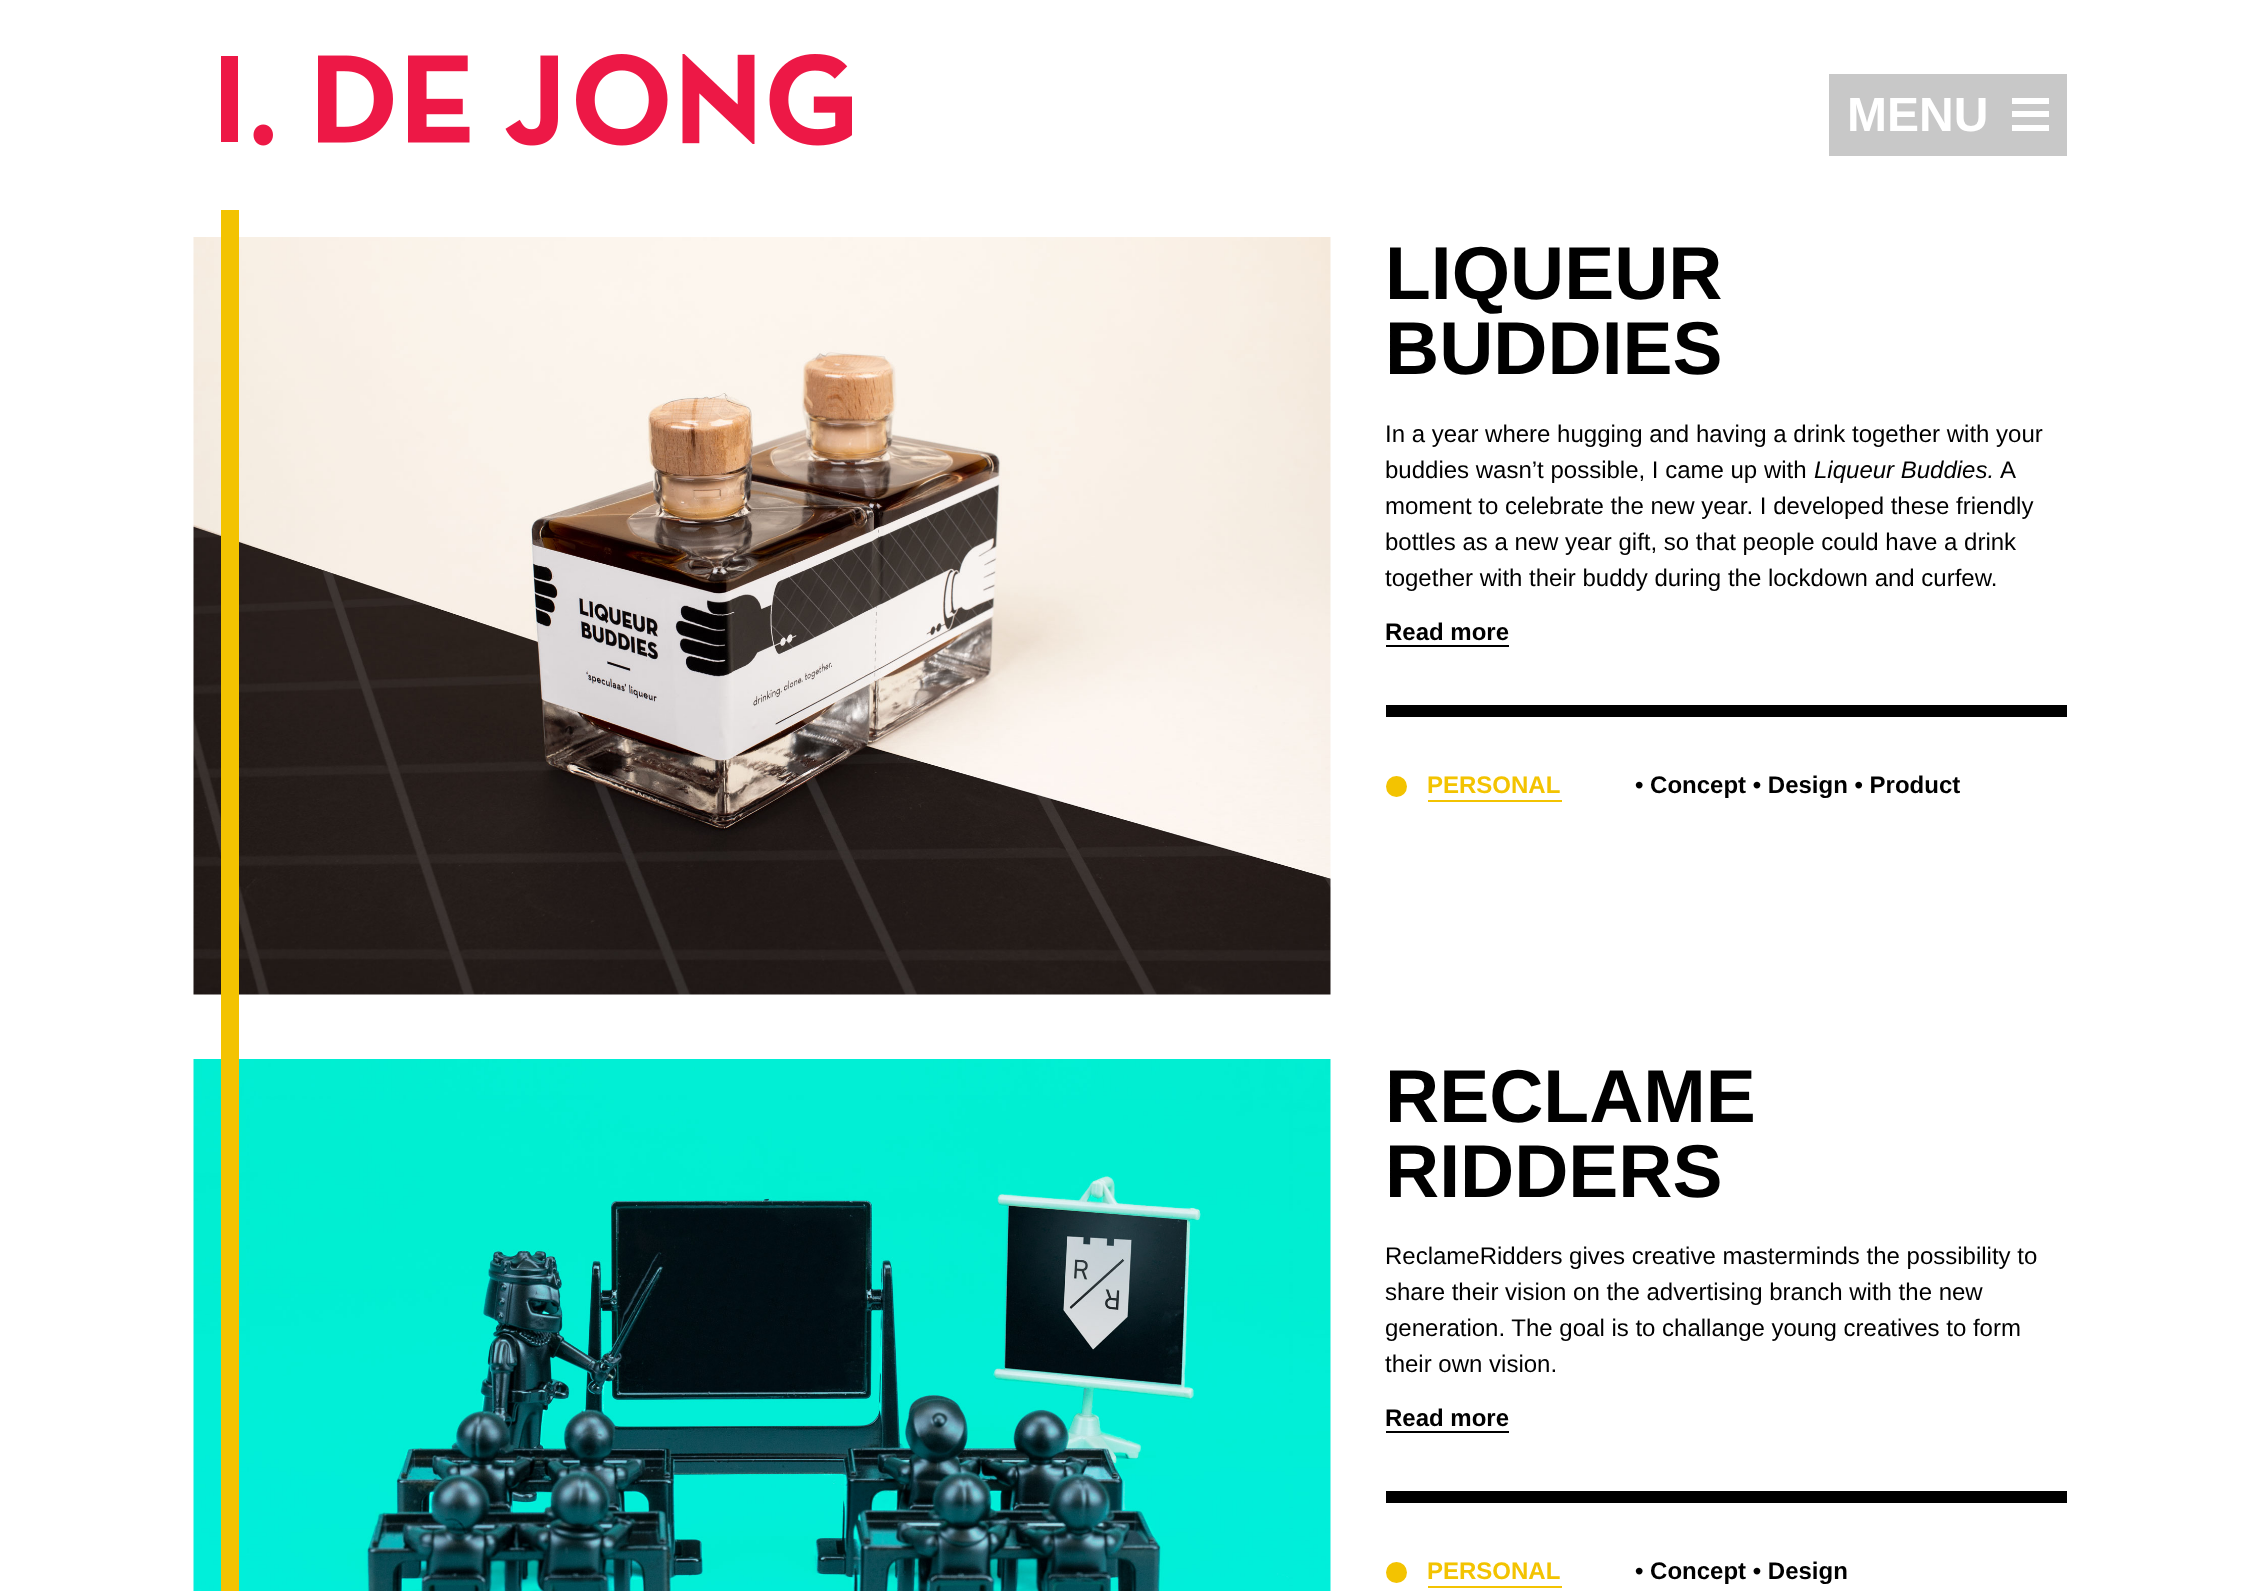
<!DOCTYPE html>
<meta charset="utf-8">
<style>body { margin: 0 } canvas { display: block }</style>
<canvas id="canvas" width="2260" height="1591"></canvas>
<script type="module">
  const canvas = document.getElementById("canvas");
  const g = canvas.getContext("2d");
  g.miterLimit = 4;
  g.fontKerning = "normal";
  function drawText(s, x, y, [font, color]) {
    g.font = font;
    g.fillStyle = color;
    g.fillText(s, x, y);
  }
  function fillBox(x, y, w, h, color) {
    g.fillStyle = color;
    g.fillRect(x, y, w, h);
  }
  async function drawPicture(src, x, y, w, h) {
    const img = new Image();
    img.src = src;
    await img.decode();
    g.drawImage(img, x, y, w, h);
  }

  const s1 = ["bold 48px Liberation Sans", "#FFFFFF"];
  const s2 = ["bold 75px Liberation Sans", "#000000"];
  const s3 = ["24px Liberation Sans", "#000000"];
  const s4 = ["italic 24px Liberation Sans", "#000000"];
  const s5 = ["bold 24px Liberation Sans", "#000000"];
  const s6 = ["bold 24px Liberation Sans", "#F3C301"];

  fillBox(0, 0, 2260, 1591, "#FFFFFF");
  await drawPicture("pic1.png", 221, 54, 631, 92);
  fillBox(1829, 74, 238, 82, "#C8C8C8");
  drawText("MENU", 1847, 131, s1);
  fillBox(2012, 111, 37, 6, "#FFFFFF");
  fillBox(2012, 98, 37, 6, "#FFFFFF");
  fillBox(2012, 125, 37, 6, "#FFFFFF");
  await drawPicture("pic2.png", 193, 237, 1138, 758);
  fillBox(221, 210, 18, 822, "#F3C301");
  drawText("LIQUEUR", 1385, 299, s2);
  drawText("BUDDIES", 1385, 374, s2);
  drawText("In a year where hugging and having a drink together with your", 1385, 442, s3);
  drawText("buddies wasn’t possible, I came up with", 1385, 478, s3);
  drawText("Liqueur Buddies.", 1814, 478, s4);
  drawText("A", 2000, 478, s3);
  drawText("moment to celebrate the new year. I developed these friendly", 1385, 514, s3);
  drawText("bottles as a new year gift, so that people could have a drink", 1385, 550, s3);
  drawText("together with their buddy during the lockdown and curfew.", 1385, 586, s3);
  drawText("Read more", 1385, 640, s5);
  fillBox(1386, 645, 123, 2, "#000000");
  fillBox(1386, 705, 681, 12, "#000000");
  fillBox(1428, 800, 134, 2, "#F3C301");
  g.beginPath();
  g.arc(1396.5, 786.5, 10.5, 0, Math.PI * 2);
  g.fill();
  drawText("PERSONAL", 1427, 793, s6);
  drawText("• Concept • Design • Product", 1635, 793, s5);
  await drawPicture("pic3.png", 193, 1059, 1138, 532);
  fillBox(221, 1032, 18, 559, "#F3C301");
  drawText("RECLAME", 1385, 1122, s2);
  drawText("RIDDERS", 1385, 1197, s2);
  drawText("ReclameRidders gives creative masterminds the possibility to", 1385, 1264, s3);
  drawText("share their vision on the advertising branch with the new", 1385, 1300, s3);
  drawText("generation. The goal is to challange young creatives to form", 1385, 1336, s3);
  drawText("their own vision.", 1385, 1372, s3);
  drawText("Read more", 1385, 1426, s5);
  fillBox(1386, 1431, 123, 2, "#000000");
  fillBox(1386, 1491, 681, 12, "#000000");
  fillBox(1428, 1586, 134, 2, "#F3C301");
  g.beginPath();
  g.arc(1396.5, 1572.5, 10.5, 0, Math.PI * 2);
  g.fill();
  drawText("PERSONAL", 1427, 1579, s6);
  drawText("• Concept • Design", 1635, 1579, s5);
</script>
